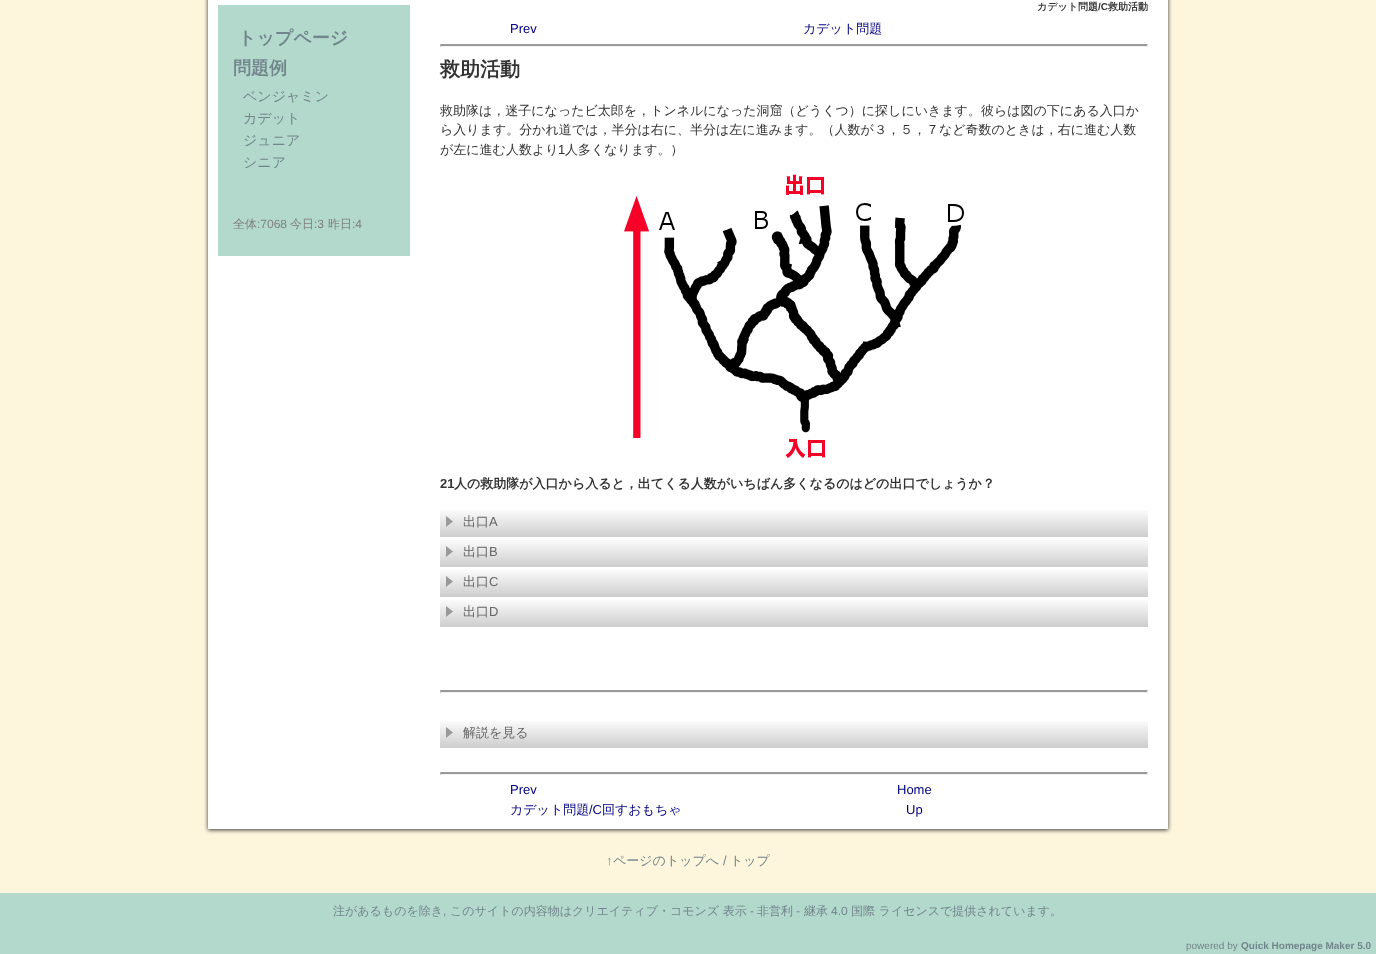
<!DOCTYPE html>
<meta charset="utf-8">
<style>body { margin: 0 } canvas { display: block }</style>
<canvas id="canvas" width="1376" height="954"></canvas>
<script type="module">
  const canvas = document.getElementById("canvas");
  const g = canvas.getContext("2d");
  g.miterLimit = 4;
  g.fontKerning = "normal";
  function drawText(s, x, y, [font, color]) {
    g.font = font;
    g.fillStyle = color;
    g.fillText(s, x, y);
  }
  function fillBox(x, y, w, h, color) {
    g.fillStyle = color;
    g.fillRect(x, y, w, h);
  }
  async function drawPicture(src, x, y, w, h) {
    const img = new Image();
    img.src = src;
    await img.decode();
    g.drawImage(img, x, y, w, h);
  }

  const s1 = ["bold 18px WenQuanYi Zen Hei", "#72858C"];
  const s2 = ["500 14px WenQuanYi Zen Hei", "#72858C"];
  const s3 = ["500 12px WenQuanYi Zen Hei", "#808080"];
  const s4 = ["12px Liberation Sans", "#808080"];
  const s5 = ["bold 10px WenQuanYi Zen Hei", "#333333"];
  const s6 = ["bold 10px Liberation Sans", "#333333"];
  const s7 = ["13px Liberation Sans", "#000080"];
  const s8 = ["500 13px WenQuanYi Zen Hei", "#000080"];
  const s9 = ["bold 20px WenQuanYi Zen Hei", "#333333"];
  const s10 = ["500 13px WenQuanYi Zen Hei", "#333333"];
  const s11 = ["13px Liberation Sans", "#333333"];
  const s12 = ["bold 13px Liberation Sans", "#333333"];
  const s13 = ["bold 13px WenQuanYi Zen Hei", "#333333"];
  const s14 = ["500 13px WenQuanYi Zen Hei", "#666666"];
  const s15 = ["13px Liberation Sans", "#666666"];
  const s16 = ["13px Liberation Sans", "#72858C"];
  const s17 = ["500 13px WenQuanYi Zen Hei", "#72858C"];
  const s18 = ["500 12px WenQuanYi Zen Hei", "#72858C"];
  const s19 = ["12px Liberation Sans", "#72858C"];
  const s20 = ["10px Liberation Sans", "#72858C"];
  const s21 = ["bold 10px Liberation Sans", "#72858C"];

  fillBox(0, 0, 1376, 954, "#FDF5DC");
  g.fillStyle = "#333333";
  g.filter = "blur(2px)";
  g.beginPath();
  g.rect(208, -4, 960, 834);
  g.fill();
  g.filter = "none";
  fillBox(208, 0, 960, 829, "#FFFFFF");
  fillBox(218, 5, 192, 251, "#B3D9CC");
  drawText("トップページ", 238, 44, s1);
  drawText("問題例", 233, 74, s1);
  drawText("ベンジャミン", 243, 101, s2);
  drawText("カデット", 243, 123, s2);
  drawText("ジュニア", 243, 145, s2);
  drawText("シニア", 243, 167, s2);
  drawText("全体", 233, 228, s3);
  drawText(":7068", 257, 228, s4);
  drawText("今日", 290, 228, s3);
  drawText(":3", 314, 228, s4);
  drawText("昨日", 328, 228, s3);
  drawText(":4", 352, 228, s4);
  drawText("カデット問題", 1037, 10, s5);
  drawText("/C", 1098, 10, s6);
  drawText("救助活動", 1108, 10, s5);
  drawText("Prev", 510, 33, s7);
  drawText("カデット問題", 803, 33, s8);
  g.fillStyle = "#999999";
  g.beginPath();
  g.moveTo(440, 44);
  g.lineTo(1148, 44);
  g.lineTo(1147, 46);
  g.lineTo(441, 46);
  g.closePath();
  g.fill();
  g.fillStyle = "#EEEEEE";
  g.beginPath();
  g.moveTo(1148, 44);
  g.lineTo(1148, 47);
  g.lineTo(1147, 46);
  g.closePath();
  g.fill();
  fillBox(440, 46, 708, 1, "#EEEEEE");
  g.fillStyle = "#9F9F9F";
  g.beginPath();
  g.moveTo(440, 47);
  g.lineTo(440, 44);
  g.lineTo(441, 46);
  g.closePath();
  g.fill();
  drawText("救助活動", 440, 76, s9);
  drawText("救助隊は，迷子になったビ太郎を，トンネルになった洞窟（どうくつ）に探しにいきます。彼らは図の下にある入口か", 440, 115, s10);
  drawText("ら入ります。分かれ道では，半分は右に、半分は左に進みます。（人数が３，５，７など奇数のときは，右に進む人数", 440, 134, s10);
  drawText("が左に進む人数より", 440, 154, s10);
  drawText("1", 558, 154, s11);
  drawText("人多くなります。）", 565, 154, s10);
  await drawPicture("pic1.png", 624, 174, 340, 284);
  drawText("21", 440, 488, s12);
  drawText("人の救助隊が入口から入ると，出てくる人数がいちばん多くなるのはどの出口でしょうか？", 454, 488, s13);
  await drawPicture("pic2.png", 440, 510, 708, 27);
  await drawPicture("pic3.png", 446, 516, 7, 11);
  drawText("出口", 463, 526, s14);
  drawText("A", 489, 526, s15);
  await drawPicture("pic2.png", 440, 540, 708, 27);
  await drawPicture("pic3.png", 446, 546, 7, 11);
  drawText("出口", 463, 556, s14);
  drawText("B", 489, 556, s15);
  await drawPicture("pic2.png", 440, 570, 708, 27);
  await drawPicture("pic3.png", 446, 576, 7, 11);
  drawText("出口", 463, 586, s14);
  drawText("C", 489, 586, s15);
  await drawPicture("pic2.png", 440, 600, 708, 27);
  await drawPicture("pic3.png", 446, 606, 7, 11);
  drawText("出口", 463, 616, s14);
  drawText("D", 489, 616, s15);
  g.fillStyle = "#999999";
  g.beginPath();
  g.moveTo(440, 690);
  g.lineTo(1148, 690);
  g.lineTo(1147, 692);
  g.lineTo(441, 692);
  g.closePath();
  g.fill();
  g.fillStyle = "#EEEEEE";
  g.beginPath();
  g.moveTo(1148, 690);
  g.lineTo(1148, 693);
  g.lineTo(1147, 692);
  g.closePath();
  g.fill();
  fillBox(440, 692, 708, 1, "#EEEEEE");
  g.fillStyle = "#9F9F9F";
  g.beginPath();
  g.moveTo(440, 693);
  g.lineTo(440, 690);
  g.lineTo(441, 692);
  g.closePath();
  g.fill();
  await drawPicture("pic2.png", 440, 721, 708, 27);
  await drawPicture("pic3.png", 446, 727, 7, 11);
  drawText("解説を見る", 463, 737, s14);
  g.fillStyle = "#999999";
  g.beginPath();
  g.moveTo(440, 772);
  g.lineTo(1148, 772);
  g.lineTo(1147, 774);
  g.lineTo(441, 774);
  g.closePath();
  g.fill();
  g.fillStyle = "#EEEEEE";
  g.beginPath();
  g.moveTo(1148, 772);
  g.lineTo(1148, 775);
  g.lineTo(1147, 774);
  g.closePath();
  g.fill();
  fillBox(440, 774, 708, 1, "#EEEEEE");
  g.fillStyle = "#9F9F9F";
  g.beginPath();
  g.moveTo(440, 775);
  g.lineTo(440, 772);
  g.lineTo(441, 774);
  g.closePath();
  g.fill();
  drawText("Prev", 510, 794, s7);
  drawText("カデット問題", 510, 814, s8);
  drawText("/C", 589, 814, s7);
  drawText("回すおもちゃ", 602, 814, s8);
  drawText("Home", 897, 794, s7);
  drawText("Up", 906, 814, s7);
  drawText("↑", 606, 865, s16);
  drawText("ページのトップへ", 613, 865, s17);
  drawText("/", 723, 865, s16);
  drawText("トップ", 730, 865, s17);
  fillBox(0, 893, 1376, 61, "#B3D9CC");
  drawText("注があるものを除き", 333, 915, s18);
  drawText("このサイトの内容物はクリエイティブ・コモンズ 表示", 450, 915, s18);
  drawText("-", 750, 915, s19);
  drawText("非営利", 757, 915, s18);
  drawText("-", 796, 915, s19);
  drawText("継承", 804, 915, s18);
  drawText("4.0", 831, 915, s19);
  drawText("国際 ライセンスで提供されています。", 851, 915, s18);
  drawText(",", 443, 915, s19);
  drawText("powered by", 1186, 949, s20);
  drawText("Quick Homepage Maker 5.0", 1241, 949, s21);
</script>
